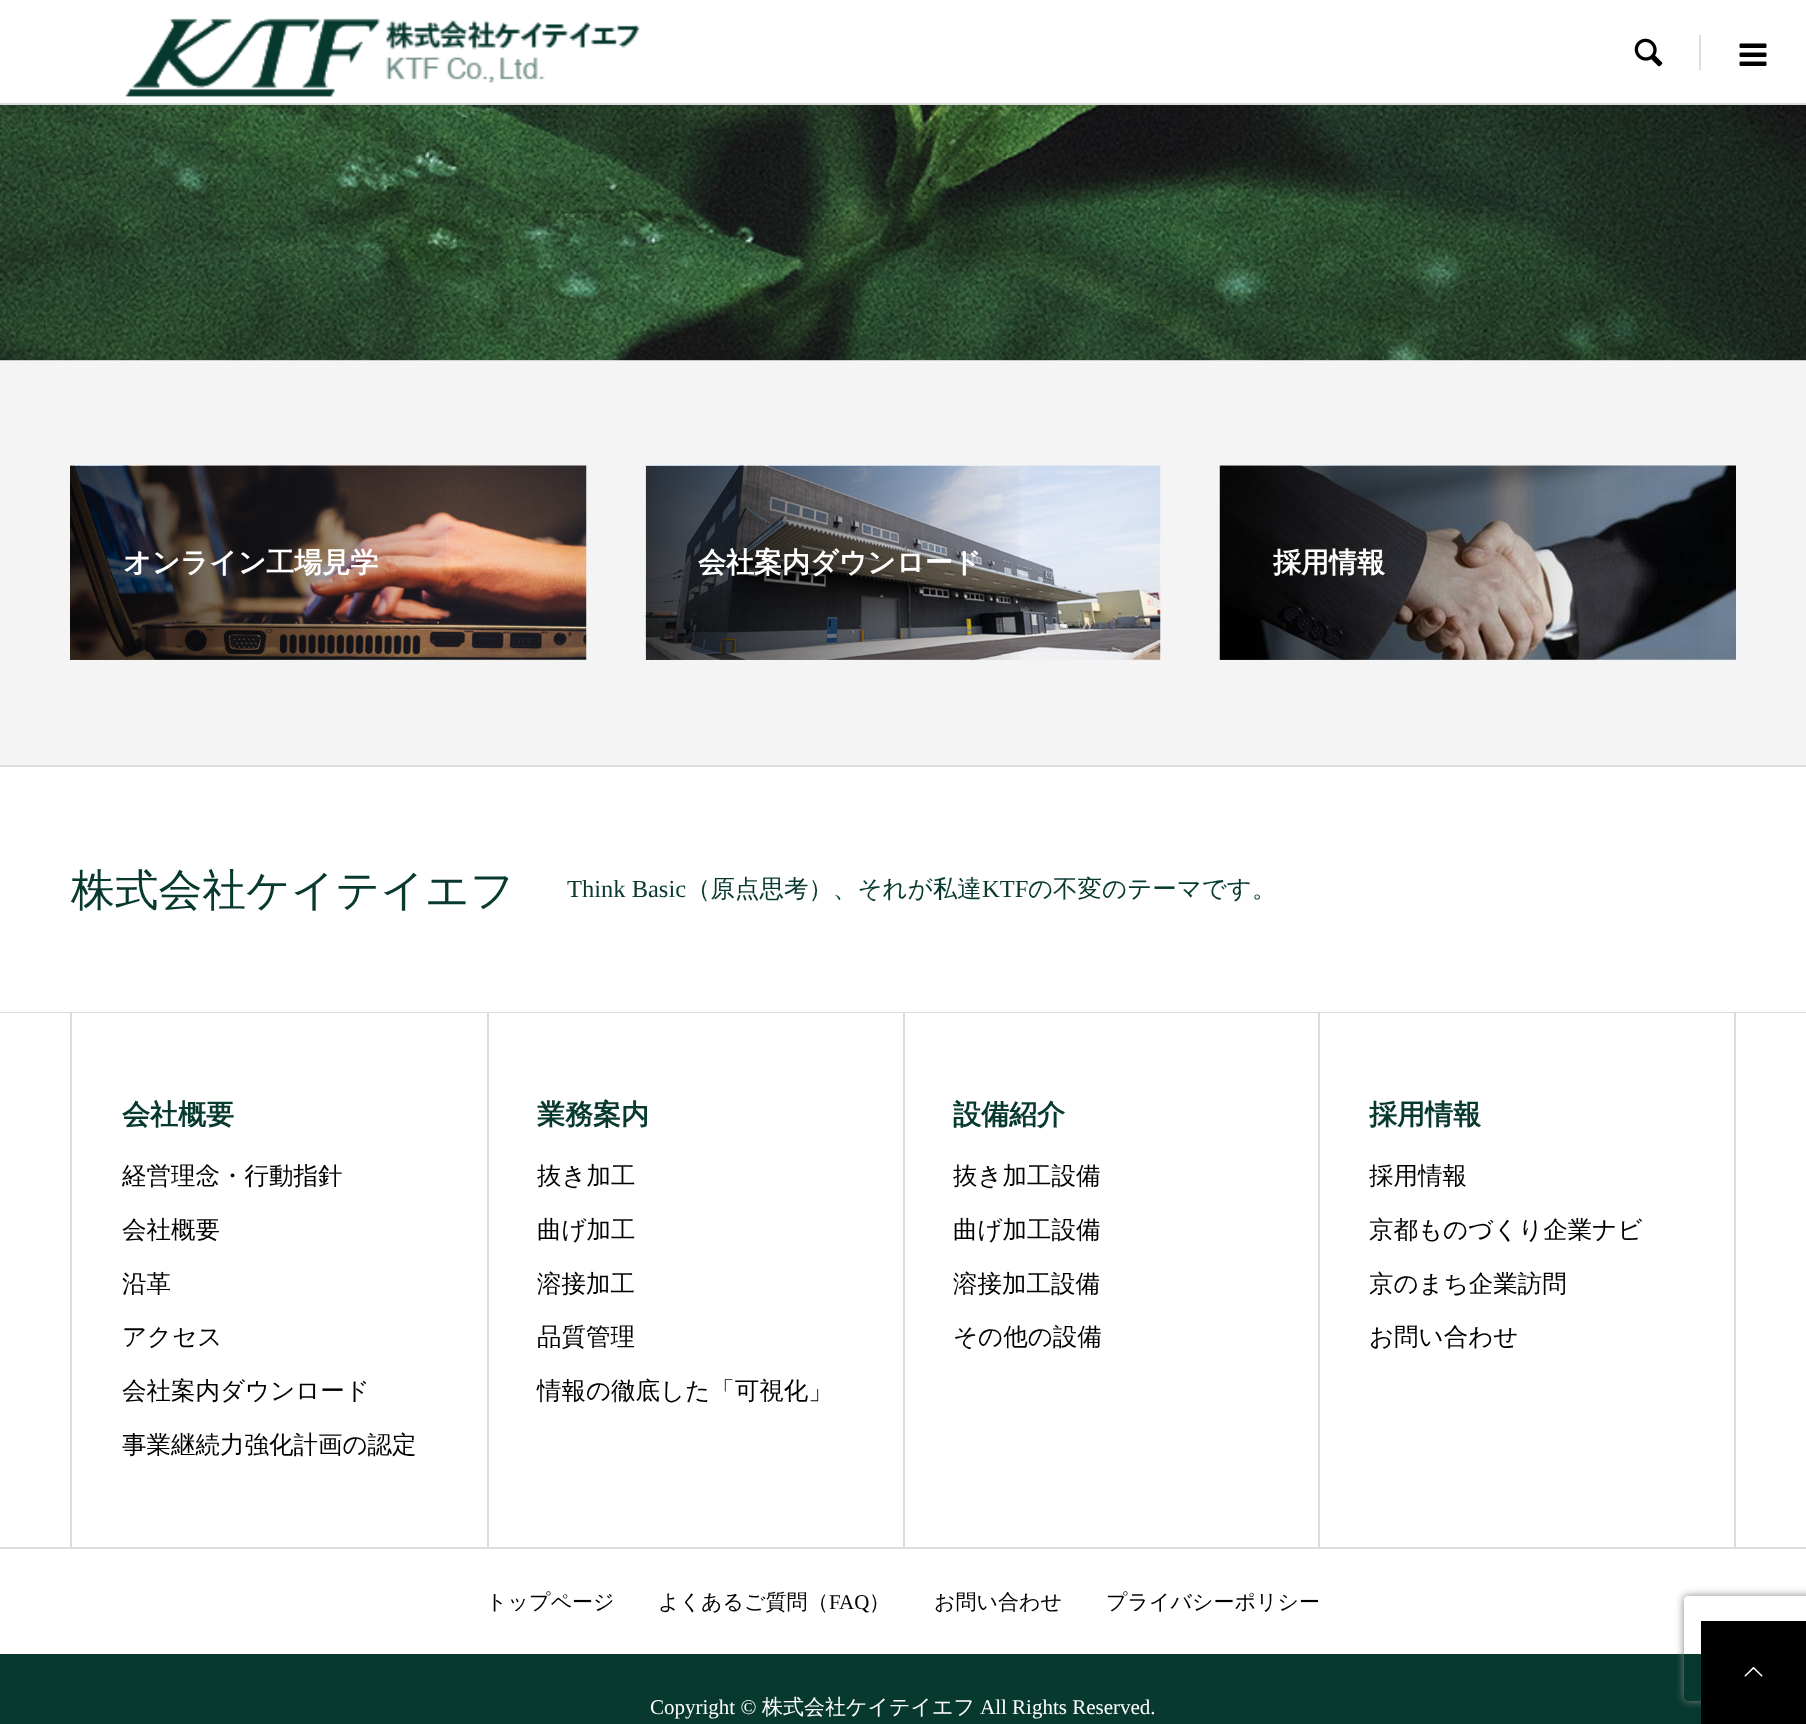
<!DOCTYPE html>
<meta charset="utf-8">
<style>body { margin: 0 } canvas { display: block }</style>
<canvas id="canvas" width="1806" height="1724"></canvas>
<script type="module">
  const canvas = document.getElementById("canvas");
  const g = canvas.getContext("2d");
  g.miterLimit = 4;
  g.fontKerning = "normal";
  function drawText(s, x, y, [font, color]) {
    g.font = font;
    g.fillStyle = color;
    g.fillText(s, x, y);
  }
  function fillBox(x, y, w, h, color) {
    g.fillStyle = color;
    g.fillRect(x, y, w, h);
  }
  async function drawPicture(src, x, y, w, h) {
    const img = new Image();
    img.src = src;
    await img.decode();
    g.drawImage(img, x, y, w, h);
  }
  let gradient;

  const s1 = ["bold 28px WenQuanYi Zen Hei", "#FFFFFF"];
  const s2 = ["500 43.75px WenQuanYi Zen Hei", "#07392F"];
  const s3 = ["24.5px Liberation Serif", "#07392F"];
  const s4 = ["500 24.5px WenQuanYi Zen Hei", "#07392F"];
  const s5 = ["bold 28px WenQuanYi Zen Hei", "#07392F"];
  const s6 = ["500 24.5px WenQuanYi Zen Hei", "#000000"];
  const s7 = ["500 21px WenQuanYi Zen Hei", "#000000"];
  const s8 = ["21px Liberation Serif", "#000000"];
  const s9 = ["21px Liberation Serif", "#FFFFFF"];
  const s10 = ["500 21px WenQuanYi Zen Hei", "#FFFFFF"];

  fillBox(0, 0, 1806, 1724, "#FFFFFF");
  fillBox(0, 103, 1806, 2, "#DDDDDD");
  await drawPicture("pic1.png", 125, 18, 515, 79);
  await drawPicture("pic2.png", 1634, 38, 29, 29);
  fillBox(1699, 35, 2, 35, "#DDDDDD");
  await drawPicture("pic3.png", 1739, 43, 28, 23);
  await drawPicture("pic4.png", 0, 105, 1806, 256);
  fillBox(0, 361, 1806, 404, "#F4F4F4");
  fillBox(0, 765, 1806, 2, "#DDDDDD");
  await drawPicture("pic5.png", 70, 465, 517, 195);
  gradient = g.createLinearGradient(70, 563, 586, 563);
  gradient.addColorStop(0, "rgba(0, 0, 0, 0.75)");
  gradient.addColorStop(0.75, "rgba(0, 0, 0, 0)");
  g.fillStyle = gradient;
  g.fillRect(70, 466, 376, 194);
  drawText("オンライン工場見学", 123, 572, s1);
  await drawPicture("pic6.png", 645, 465, 516, 195);
  gradient = g.createLinearGradient(646, 563, 1160, 563);
  gradient.addColorStop(0, "rgba(0, 0, 0, 0.75)");
  gradient.addColorStop(0.75, "rgba(0, 0, 0, 0)");
  g.fillStyle = gradient;
  g.fillRect(646, 466, 374, 194);
  drawText("会社案内ダウンロード", 698, 572, s1);
  await drawPicture("pic7.png", 1219, 465, 517, 195);
  gradient = g.createLinearGradient(1220, 563, 1736, 563);
  gradient.addColorStop(0, "rgba(0, 0, 0, 0.75)");
  gradient.addColorStop(0.75, "rgba(0, 0, 0, 0)");
  g.fillStyle = gradient;
  g.fillRect(1220, 466, 376, 194);
  drawText("採用情報", 1273, 572, s1);
  fillBox(0, 1012, 1806, 1, "#DDDDDD");
  drawText("株式会社ケイテイエフ", 71, 905, s2);
  drawText("Think Basic", 567, 897, s3);
  drawText("（原点思考）、それが私達", 686, 897, s4);
  drawText("KTF", 982, 897, s3);
  drawText("の不変のテーマです。", 1028, 897, s4);
  fillBox(70, 1013, 2, 534, "#DDDDDD");
  fillBox(487, 1013, 2, 534, "#DDDDDD");
  drawText("会社概要", 122, 1124, s5);
  drawText("経営理念・行動指針", 122, 1184, s6);
  drawText("会社概要", 122, 1238, s6);
  drawText("沿革", 122, 1292, s6);
  drawText("アクセス", 122, 1345, s6);
  drawText("会社案内ダウンロード", 122, 1399, s6);
  drawText("事業継続力強化計画の認定", 122, 1453, s6);
  fillBox(903, 1013, 2, 534, "#DDDDDD");
  drawText("業務案内", 537, 1124, s5);
  drawText("抜き加工", 537, 1184, s6);
  drawText("曲げ加工", 537, 1238, s6);
  drawText("溶接加工", 537, 1292, s6);
  drawText("品質管理", 537, 1345, s6);
  drawText("情報の徹底した「可視化」", 537, 1399, s6);
  fillBox(1318, 1013, 2, 534, "#DDDDDD");
  drawText("設備紹介", 953, 1124, s5);
  drawText("抜き加工設備", 953, 1184, s6);
  drawText("曲げ加工設備", 953, 1238, s6);
  drawText("溶接加工設備", 953, 1292, s6);
  drawText("その他の設備", 953, 1345, s6);
  fillBox(1734, 1013, 2, 534, "#DDDDDD");
  drawText("採用情報", 1369, 1124, s5);
  drawText("採用情報", 1369, 1184, s6);
  drawText("京都ものづくり企業ナビ", 1369, 1238, s6);
  drawText("京のまち企業訪問", 1369, 1292, s6);
  drawText("お問い合わせ", 1369, 1345, s6);
  fillBox(0, 1547, 1806, 2, "#DDDDDD");
  drawText("トップページ", 486, 1609, s7);
  drawText("よくあるご質問（", 658, 1609, s7);
  drawText("FAQ", 829, 1609, s8);
  drawText("）", 869, 1609, s7);
  drawText("お問い合わせ", 934, 1609, s7);
  drawText("プライバシーポリシー", 1106, 1609, s7);
  fillBox(0, 1654, 1701, 70, "#07392F");
  drawText("Copyright ©", 650, 1714, s9);
  drawText("株式会社ケイテイエフ", 762, 1714, s10);
  drawText("All Rights Reserved.", 980, 1714, s9);
  g.save();
  g.beginPath();
  g.moveTo(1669, 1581);
  g.lineTo(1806, 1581);
  g.lineTo(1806, 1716);
  g.lineTo(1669, 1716);
  g.closePath();
  g.moveTo(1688, 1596);
  g.lineTo(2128, 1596);
  g.bezierCurveTo(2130, 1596, 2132, 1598, 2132, 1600);
  g.lineTo(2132, 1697);
  g.bezierCurveTo(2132, 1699, 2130, 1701, 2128, 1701);
  g.lineTo(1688, 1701);
  g.bezierCurveTo(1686, 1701, 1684, 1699, 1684, 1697);
  g.lineTo(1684, 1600);
  g.bezierCurveTo(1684, 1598, 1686, 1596, 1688, 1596);
  g.closePath();
  g.clip("evenodd");
  g.fillStyle = "#808080";
  g.filter = "blur(4.5px)";
  g.beginPath();
  g.roundRect(1684, 1596, 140, 105, 4);
  g.fill();
  g.filter = "none";
  g.restore();
  fillBox(1701, 1621, 105, 103, "#000000");
  await drawPicture("pic8.png", 1744, 1667, 19, 10);
</script>
